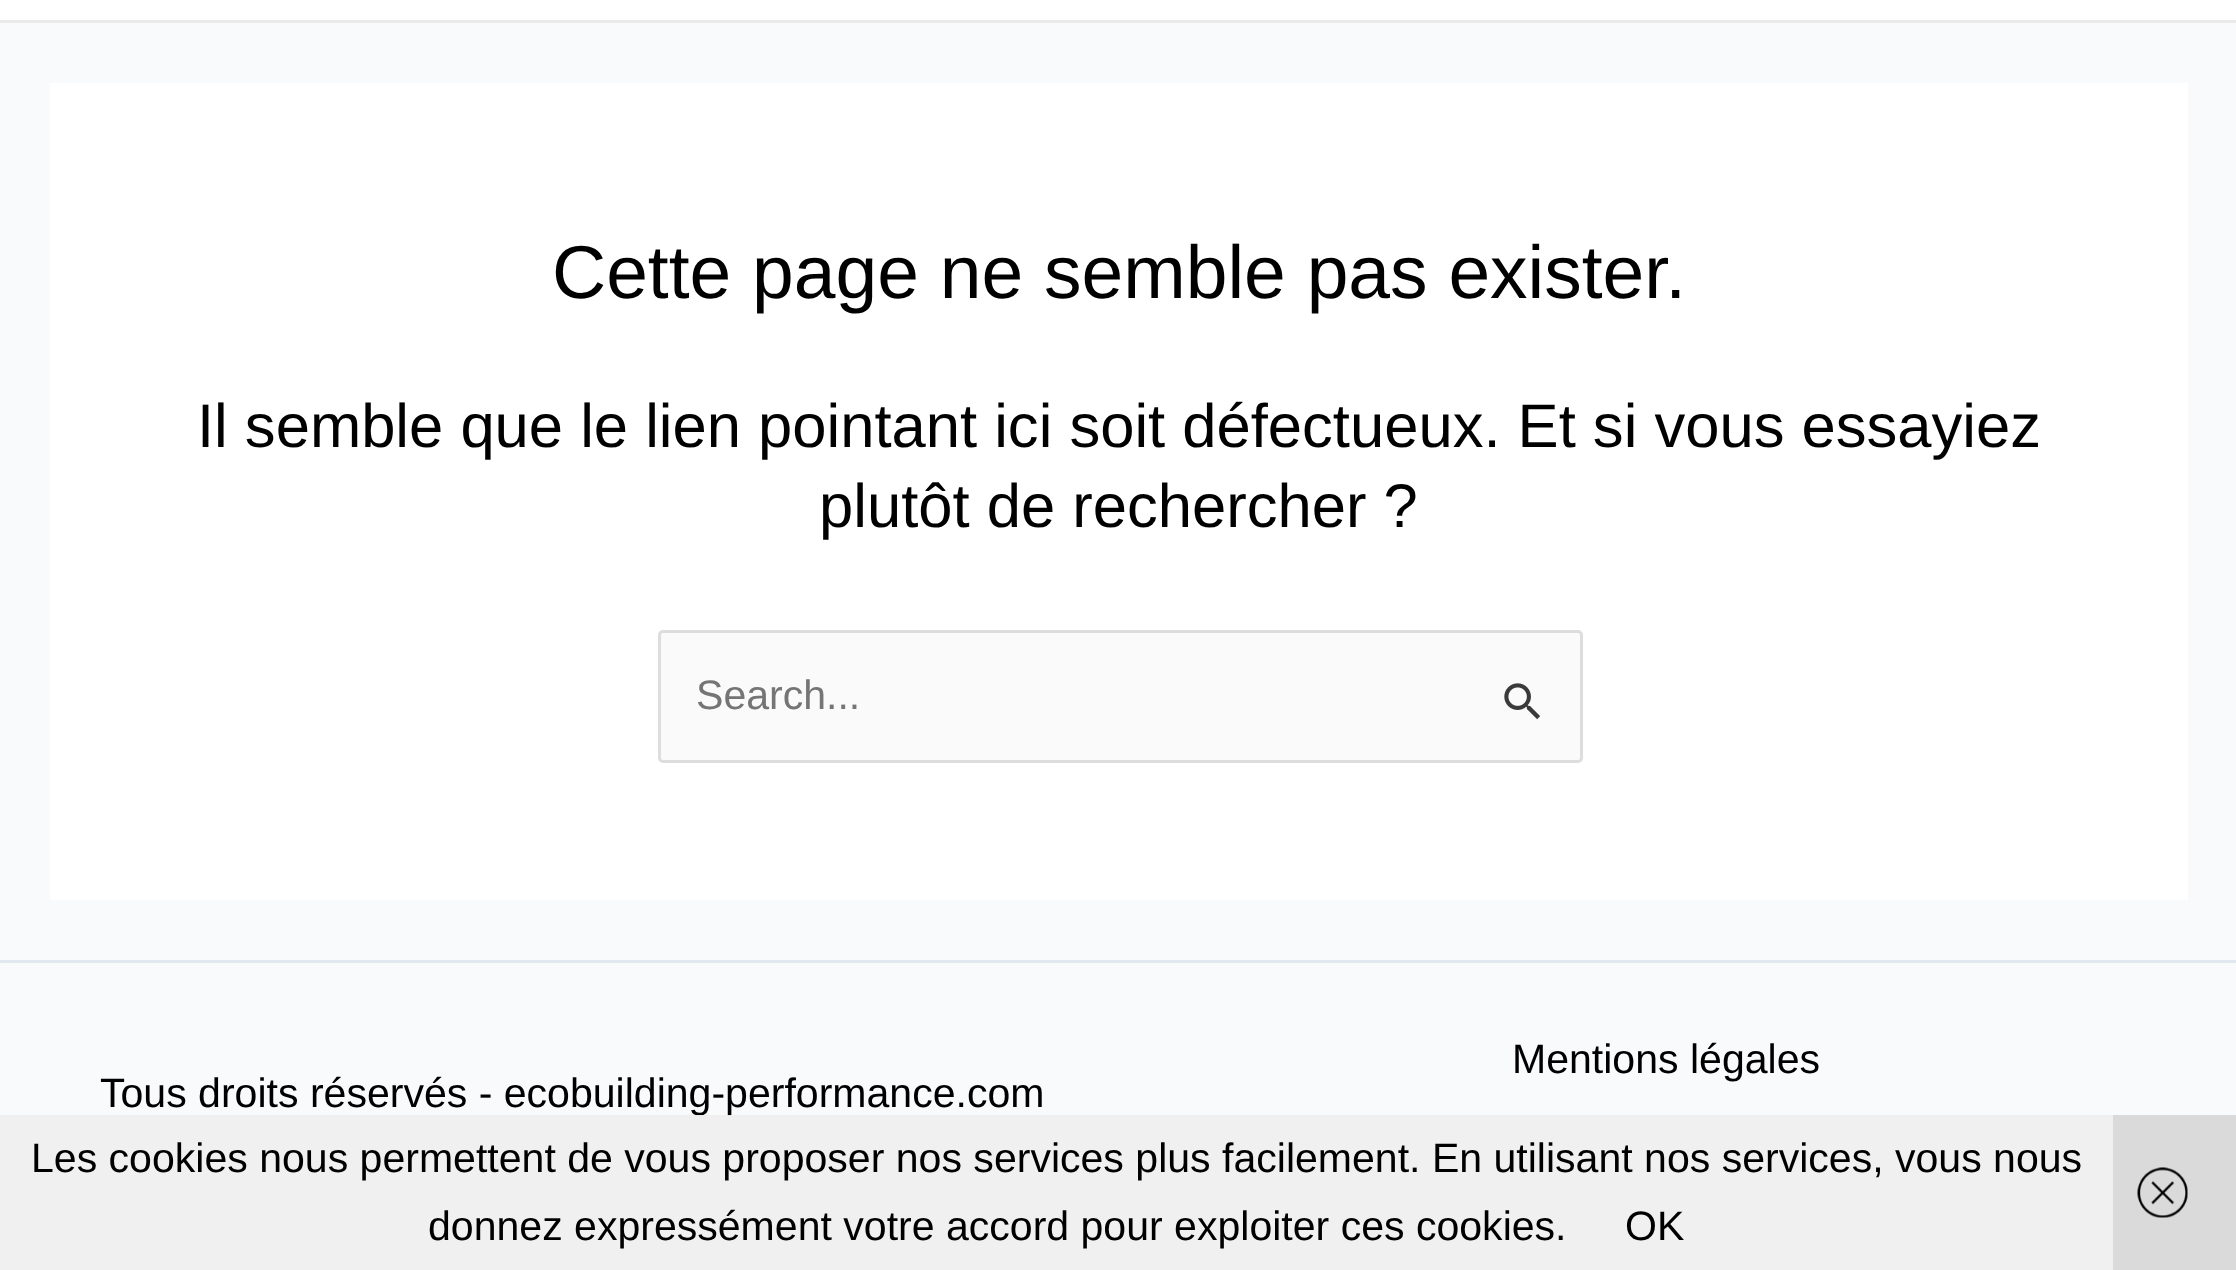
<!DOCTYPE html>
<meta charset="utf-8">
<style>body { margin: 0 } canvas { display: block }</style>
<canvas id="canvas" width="2236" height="1270"></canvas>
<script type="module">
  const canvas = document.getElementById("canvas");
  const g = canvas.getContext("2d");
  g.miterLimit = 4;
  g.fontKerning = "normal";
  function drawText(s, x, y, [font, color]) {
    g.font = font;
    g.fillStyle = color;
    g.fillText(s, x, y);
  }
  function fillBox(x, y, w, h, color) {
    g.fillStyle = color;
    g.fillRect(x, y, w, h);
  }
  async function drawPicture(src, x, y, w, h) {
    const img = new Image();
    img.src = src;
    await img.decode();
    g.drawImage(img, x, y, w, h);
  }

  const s1 = ["75px Liberation Sans", "#000000"];
  const s2 = ["61.55px Liberation Sans", "#000000"];
  const s3 = ["41.05px Liberation Sans", "#757575"];
  const s4 = ["41.05px Liberation Sans", "#000000"];

  fillBox(0, 0, 2236, 1270, "#F9FAFB");
  fillBox(0, 0, 2236, 20, "#FFFFFF");
  fillBox(0, 20, 2236, 3, "#EAEAEA");
  fillBox(50, 83, 2138, 817, "#FFFFFF");
  drawText("Cette page ne semble pas exister.", 552, 298, s1);
  drawText("Il semble que le lien pointant ici soit défectueux. Et si vous essayiez", 197, 447, s2);
  drawText("plutôt de rechercher ?", 819, 527, s2);
  g.fillStyle = "#FAFAFA";
  g.beginPath();
  g.roundRect(659.5, 631.5, 922, 130, 3.5);
  g.fill();
  g.strokeStyle = "#DDDDDD";
  g.lineWidth = 3;
  g.stroke();
  drawText("Search...", 696, 709, s3);
  await drawPicture("pic1.png", 1504, 683, 36, 37);
  fillBox(0, 960, 2236, 3, "#E2E8F0");
  drawText("Mentions légales", 1512, 1073, s4);
  drawText("Tous droits réservés - ecobuilding-performance.com", 100, 1107, s4);
  fillBox(0, 1115, 2113, 155, "rgba(238, 238, 238, 0.9)");
  drawText("Les cookies nous permettent de vous proposer nos services plus facilement. En utilisant nos services, vous nous", 31, 1172, s4);
  drawText("donnez expressément votre accord pour exploiter ces cookies.", 428, 1240, s4);
  drawText("OK", 1625, 1240, s4);
  fillBox(2113, 1115, 123, 155, "#DADADA");
  await drawPicture("pic2.png", 2137, 1167, 51, 51);
</script>
